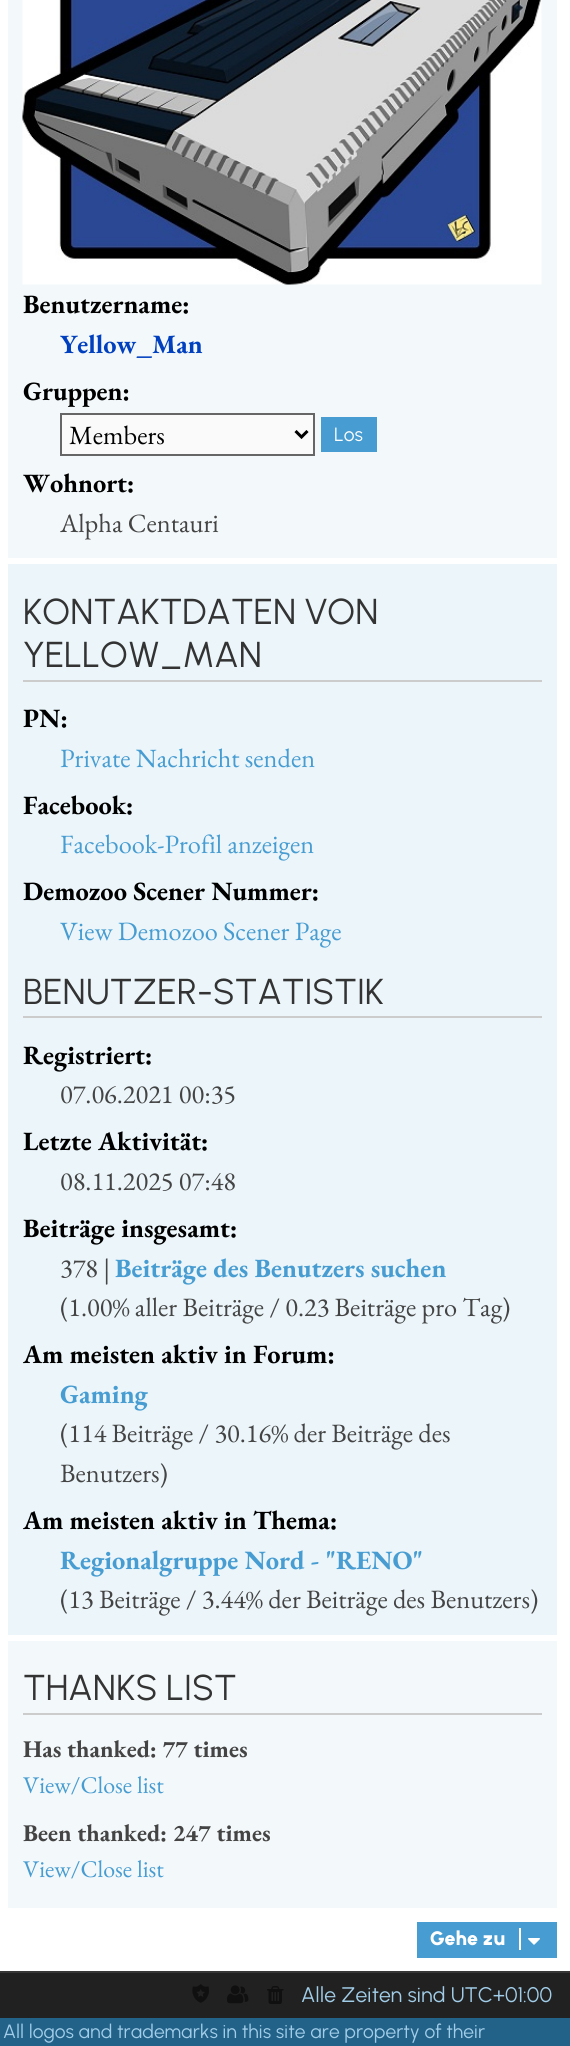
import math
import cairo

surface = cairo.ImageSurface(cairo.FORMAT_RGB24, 570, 2046)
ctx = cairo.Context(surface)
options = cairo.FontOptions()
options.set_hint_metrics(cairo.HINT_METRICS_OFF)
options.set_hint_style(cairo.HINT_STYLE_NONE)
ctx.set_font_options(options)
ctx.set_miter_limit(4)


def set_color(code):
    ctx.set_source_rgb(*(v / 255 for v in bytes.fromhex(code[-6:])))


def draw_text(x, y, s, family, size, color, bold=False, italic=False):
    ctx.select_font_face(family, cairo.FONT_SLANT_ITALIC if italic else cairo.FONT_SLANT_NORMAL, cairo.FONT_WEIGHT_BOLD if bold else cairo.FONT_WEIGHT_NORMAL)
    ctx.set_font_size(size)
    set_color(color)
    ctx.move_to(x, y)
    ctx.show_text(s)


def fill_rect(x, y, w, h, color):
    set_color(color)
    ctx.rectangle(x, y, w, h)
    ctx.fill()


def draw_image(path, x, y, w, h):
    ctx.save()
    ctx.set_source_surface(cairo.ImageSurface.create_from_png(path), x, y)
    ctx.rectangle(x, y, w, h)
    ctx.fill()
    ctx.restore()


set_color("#ffffff")
ctx.paint()
fill_rect(8, 0, 549, 558, "#f3f8fa")
draw_image("assets/img1.png", 22, 0, 520, 285)
draw_text(23, 313, "Benutzername:", "EB Garamond", 26.4, "#000000", bold=True)
draw_text(60, 353, "Yellow_Man", "EB Garamond", 26.4, "#0040bf", bold=True)
draw_text(23, 400, "Gruppen:", "EB Garamond", 26.4, "#000000", bold=True)
set_color("#fafafa")
ctx.rectangle(61, 414, 253, 41)
ctx.fill_preserve()
set_color("#666666")
ctx.stroke()
ctx.new_path()
ctx.move_to(295.5, 431)
ctx.line_to(301.5, 437)
ctx.line_to(307.5, 431)
set_color("#000000")
ctx.set_line_width(3)
ctx.stroke()
draw_text(69, 444, "Members", "EB Garamond", 26.4, "#000000")
fill_rect(321, 417, 56, 35, "#479cd1")
draw_text(334, 441, "Los", "Urbanist", 19.2, "#ffffff")
draw_text(23, 492, "Wohnort:", "EB Garamond", 26.4, "#000000", bold=True)
draw_text(60, 532, "Alpha Centauri", "EB Garamond", 26.4, "#444444")
fill_rect(8, 564, 549, 1071, "#ebf5fa")
fill_rect(23, 680, 519, 2, "#cccccc")
draw_text(23, 624, "KONTAKTDATEN VON", "Urbanist", 36, "#333333")
draw_text(23, 667, "YELLOW_MAN", "Urbanist", 36, "#333333")
draw_text(23, 727, "PN:", "EB Garamond", 26.4, "#000000", bold=True)
draw_text(60, 767, "Private Nachricht senden", "EB Garamond", 26.4, "#479cd1")
draw_text(23, 814, "Facebook:", "EB Garamond", 26.4, "#000000", bold=True)
draw_text(60, 853, "Facebook-Profil anzeigen", "EB Garamond", 26.4, "#479cd1")
draw_text(23, 900, "Demozoo Scener Nummer:", "EB Garamond", 26.4, "#000000", bold=True)
draw_text(60, 940, "View Demozoo Scener Page", "EB Garamond", 26.4, "#479cd1")
fill_rect(23, 1016, 519, 2, "#cccccc")
draw_text(23, 1004, "BENUTZER-STATISTIK", "Urbanist", 36, "#333333")
draw_text(23, 1064, "Registriert:", "EB Garamond", 26.4, "#000000", bold=True)
draw_text(60, 1103, "07.06.2021 00:35", "EB Garamond", 26.4, "#444444")
draw_text(23, 1150, "Letzte Aktivität:", "EB Garamond", 26.4, "#000000", bold=True)
draw_text(60, 1190, "08.11.2025 07:48", "EB Garamond", 26.4, "#444444")
draw_text(23, 1237, "Beiträge insgesamt:", "EB Garamond", 26.4, "#000000", bold=True)
draw_text(60, 1277, "378 |", "EB Garamond", 26.4, "#444444")
draw_text(115, 1277, "Beiträge des Benutzers suchen", "EB Garamond", 26.4, "#479cd1", bold=True)
draw_text(60, 1316, "(1.00% aller Beiträge / 0.23 Beiträge pro Tag)", "EB Garamond", 26.4, "#444444")
draw_text(23, 1363, "Am meisten aktiv in Forum:", "EB Garamond", 26.4, "#000000", bold=True)
draw_text(60, 1403, "Gaming", "EB Garamond", 26.4, "#479cd1", bold=True)
draw_text(60, 1442, "(114 Beiträge / 30.16% der Beiträge des", "EB Garamond", 26.4, "#444444")
draw_text(60, 1482, "Benutzers)", "EB Garamond", 26.4, "#444444")
draw_text(23, 1529, "Am meisten aktiv in Thema:", "EB Garamond", 26.4, "#000000", bold=True)
draw_text(60, 1569, "Regionalgruppe Nord - \"RENO\"", "EB Garamond", 26.4, "#479cd1", bold=True)
draw_text(60, 1608, "(13 Beiträge / 3.44% der Beiträge des Benutzers)", "EB Garamond", 26.4, "#444444")
fill_rect(8, 1641, 549, 267, "#f3f8fa")
fill_rect(23, 1713, 519, 2, "#cccccc")
draw_text(23, 1700, "THANKS LIST", "Urbanist", 36, "#333333")
draw_text(23, 1757, "Has thanked: 77 times", "EB Garamond", 24, "#444444", bold=True)
draw_text(23, 1793, "View/Close list", "EB Garamond", 24, "#479cd1")
draw_text(23, 1841, "Been thanked: 247 times", "EB Garamond", 24, "#444444", bold=True)
draw_text(23, 1877, "View/Close list", "EB Garamond", 24, "#479cd1")
fill_rect(417, 1922, 140, 36, "#479cd1")
draw_text(430, 1945, "Gehe zu", "Urbanist Black", 19.5, "#ffffff")
fill_rect(519, 1928, 2, 22, "#ffffff")
draw_image("assets/img2.png", 528, 1938, 12, 7)
fill_rect(0, 1973, 570, 45, "#212121")
fill_rect(0, 1971, 570, 2, "#373737")
draw_image("assets/img3.png", 192, 1984, 17, 19)
draw_image("assets/img4.png", 227, 1985, 22, 19)
draw_image("assets/img5.png", 267, 1986, 17, 18)
draw_text(301, 2002, "Alle Zeiten sind UTC+01:00", "Urbanist", 21.1, "#a1cde8")
fill_rect(0, 2018, 570, 28, "#226188")
draw_text(3, 2038, "All logos and trademarks in this site are property of their", "Urbanist", 19.2, "#a1cde8")
surface.write_to_png("output.png")
